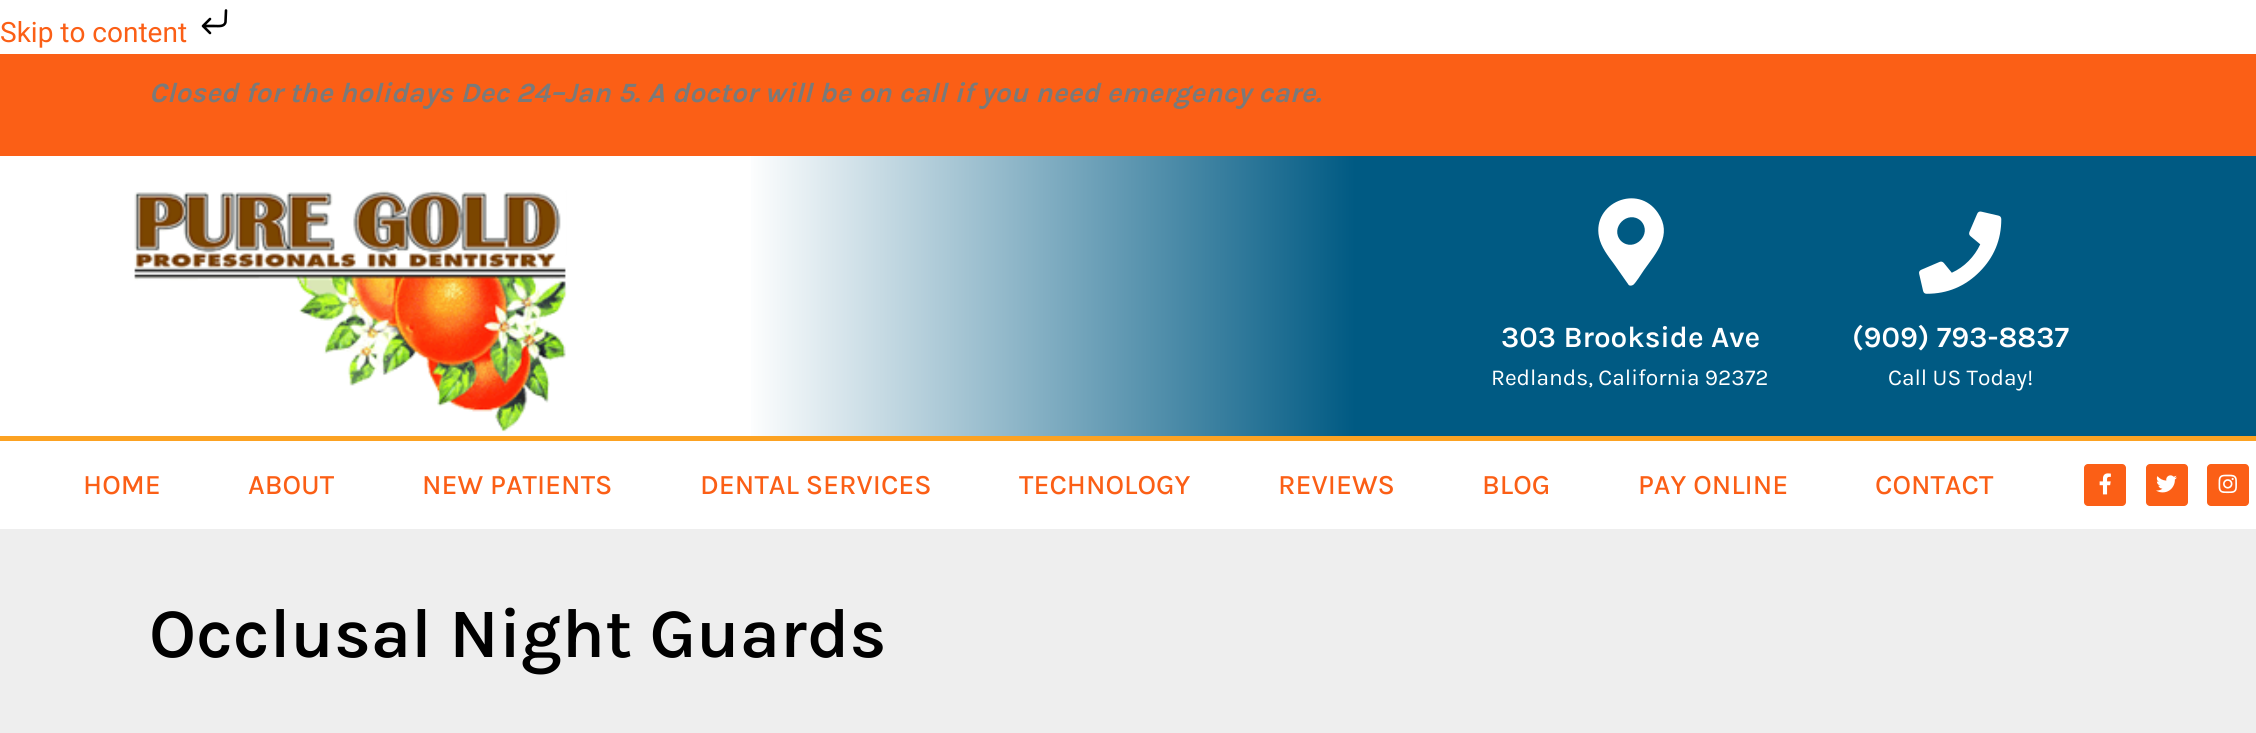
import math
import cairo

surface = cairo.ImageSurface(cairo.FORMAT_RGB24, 2256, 733)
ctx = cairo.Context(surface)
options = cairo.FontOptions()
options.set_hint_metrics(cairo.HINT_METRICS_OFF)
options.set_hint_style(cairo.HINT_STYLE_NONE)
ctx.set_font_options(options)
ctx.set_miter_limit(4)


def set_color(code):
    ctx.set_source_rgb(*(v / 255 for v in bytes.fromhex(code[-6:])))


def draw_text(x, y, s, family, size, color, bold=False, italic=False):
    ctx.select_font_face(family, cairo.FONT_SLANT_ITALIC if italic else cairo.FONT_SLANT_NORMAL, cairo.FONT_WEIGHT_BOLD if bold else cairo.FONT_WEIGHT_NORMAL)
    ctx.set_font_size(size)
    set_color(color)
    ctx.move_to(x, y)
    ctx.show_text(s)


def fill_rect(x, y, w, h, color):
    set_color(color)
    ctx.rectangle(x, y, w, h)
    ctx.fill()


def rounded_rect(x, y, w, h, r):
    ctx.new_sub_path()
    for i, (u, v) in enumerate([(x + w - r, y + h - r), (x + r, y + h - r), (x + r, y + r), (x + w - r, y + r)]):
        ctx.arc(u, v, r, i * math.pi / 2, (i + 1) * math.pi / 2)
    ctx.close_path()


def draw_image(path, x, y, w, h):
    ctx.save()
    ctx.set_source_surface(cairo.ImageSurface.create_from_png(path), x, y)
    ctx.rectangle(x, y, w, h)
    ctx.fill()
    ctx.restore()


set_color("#ffffff")
ctx.paint()
draw_text(0, 42, "Skip to content", "Roboto", 28, "#fb5f16")
ctx.new_path()
ctx.move_to(226, 10.5)
ctx.line_to(225.5, 22)
ctx.curve_to(224.5, 27, 218.5, 26, 214.5, 26)
ctx.line_to(203, 26)
ctx.move_to(203, 26)
ctx.line_to(210, 19)
ctx.move_to(203, 26)
ctx.line_to(210, 33)
set_color("#000000")
ctx.set_line_width(2.6)
ctx.set_line_cap(cairo.LINE_CAP_ROUND)
ctx.set_line_join(cairo.LINE_JOIN_ROUND)
ctx.stroke()
fill_rect(0, 54, 2256, 102, "#fb5f16")
draw_text(149, 102, "Closed for the holidays Dec 24–Jan 5. A doctor will be on call if you need emergency care.", "Karla", 28, "#7a7a7a", bold=True, italic=True)
gradient = cairo.LinearGradient(0, 296, 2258, 296)
gradient.add_color_stop_rgba(0.33, 1, 1, 1, 1)
gradient.add_color_stop_rgba(0.6, 0, 0.353, 0.514, 1)
ctx.set_source(gradient)
ctx.rectangle(751, 156, 1505, 280)
ctx.fill()
draw_image("assets/img1.png", 134, 190, 433, 242)
set_color("#ffffff")
ctx.new_path()
ctx.move_to(1628, 284)
ctx.line_to(1614, 264)
ctx.curve_to(1608, 256, 1601, 247, 1599, 237)
ctx.curve_to(1592, 203, 1638, 183, 1658, 213)
ctx.curve_to(1673, 235, 1656, 253, 1644, 270)
ctx.curve_to(1642, 273, 1635, 284, 1633, 285)
ctx.curve_to(1631, 286, 1629, 286, 1628, 284)
ctx.close_path()
ctx.move_to(1621, 241)
ctx.curve_to(1634, 253, 1653, 234, 1641, 221)
ctx.curve_to(1628, 209, 1609, 228, 1621, 241)
ctx.close_path()
ctx.fill()
draw_text(1501, 347, "303 Brookside Ave", "Karla SemiBold", 29.75, "#ffffff")
draw_text(1491, 385, "Redlands, California 92372", "Karla", 22.75, "#ffffff")
draw_image("assets/img2.png", 1919, 211, 83, 83)
draw_text(1852, 347, "(909) 793-8837", "Karla SemiBold", 29.75, "#ffffff")
draw_text(1888, 385, "Call US Today!", "Karla", 22.75, "#ffffff")
fill_rect(0, 436, 2256, 5, "#fca222")
draw_text(83, 494, "HOME", "Karla Medium", 28, "#fb5f16")
draw_text(248, 494, "ABOUT", "Karla Medium", 28, "#fb5f16")
draw_text(422, 494, "NEW PATIENTS", "Karla Medium", 28, "#fb5f16")
draw_text(700, 494, "DENTAL SERVICES", "Karla Medium", 28, "#fb5f16")
draw_text(1019, 494, "TECHNOLOGY", "Karla Medium", 28, "#fb5f16")
draw_text(1278, 494, "REVIEWS", "Karla Medium", 28, "#fb5f16")
draw_text(1482, 494, "BLOG", "Karla Medium", 28, "#fb5f16")
draw_text(1638, 494, "PAY ONLINE", "Karla Medium", 28, "#fb5f16")
draw_text(1875, 494, "CONTACT", "Karla Medium", 28, "#fb5f16")
rounded_rect(2084, 464, 42, 42, 4)
ctx.fill()
draw_image("assets/img3.png", 2099, 473, 12, 22)
rounded_rect(2146, 464, 42, 42, 4)
ctx.fill()
draw_image("assets/img4.png", 2156, 475, 21, 18)
rounded_rect(2207, 464, 42, 42, 4)
ctx.fill()
draw_image("assets/img5.png", 2218, 474, 19, 20)
fill_rect(0, 529, 2256, 204, "#eeeeee")
draw_text(149, 657, "Occlusal Night Guards", "Karla SemiBold", 70, "#000000")
surface.write_to_png("output.png")
